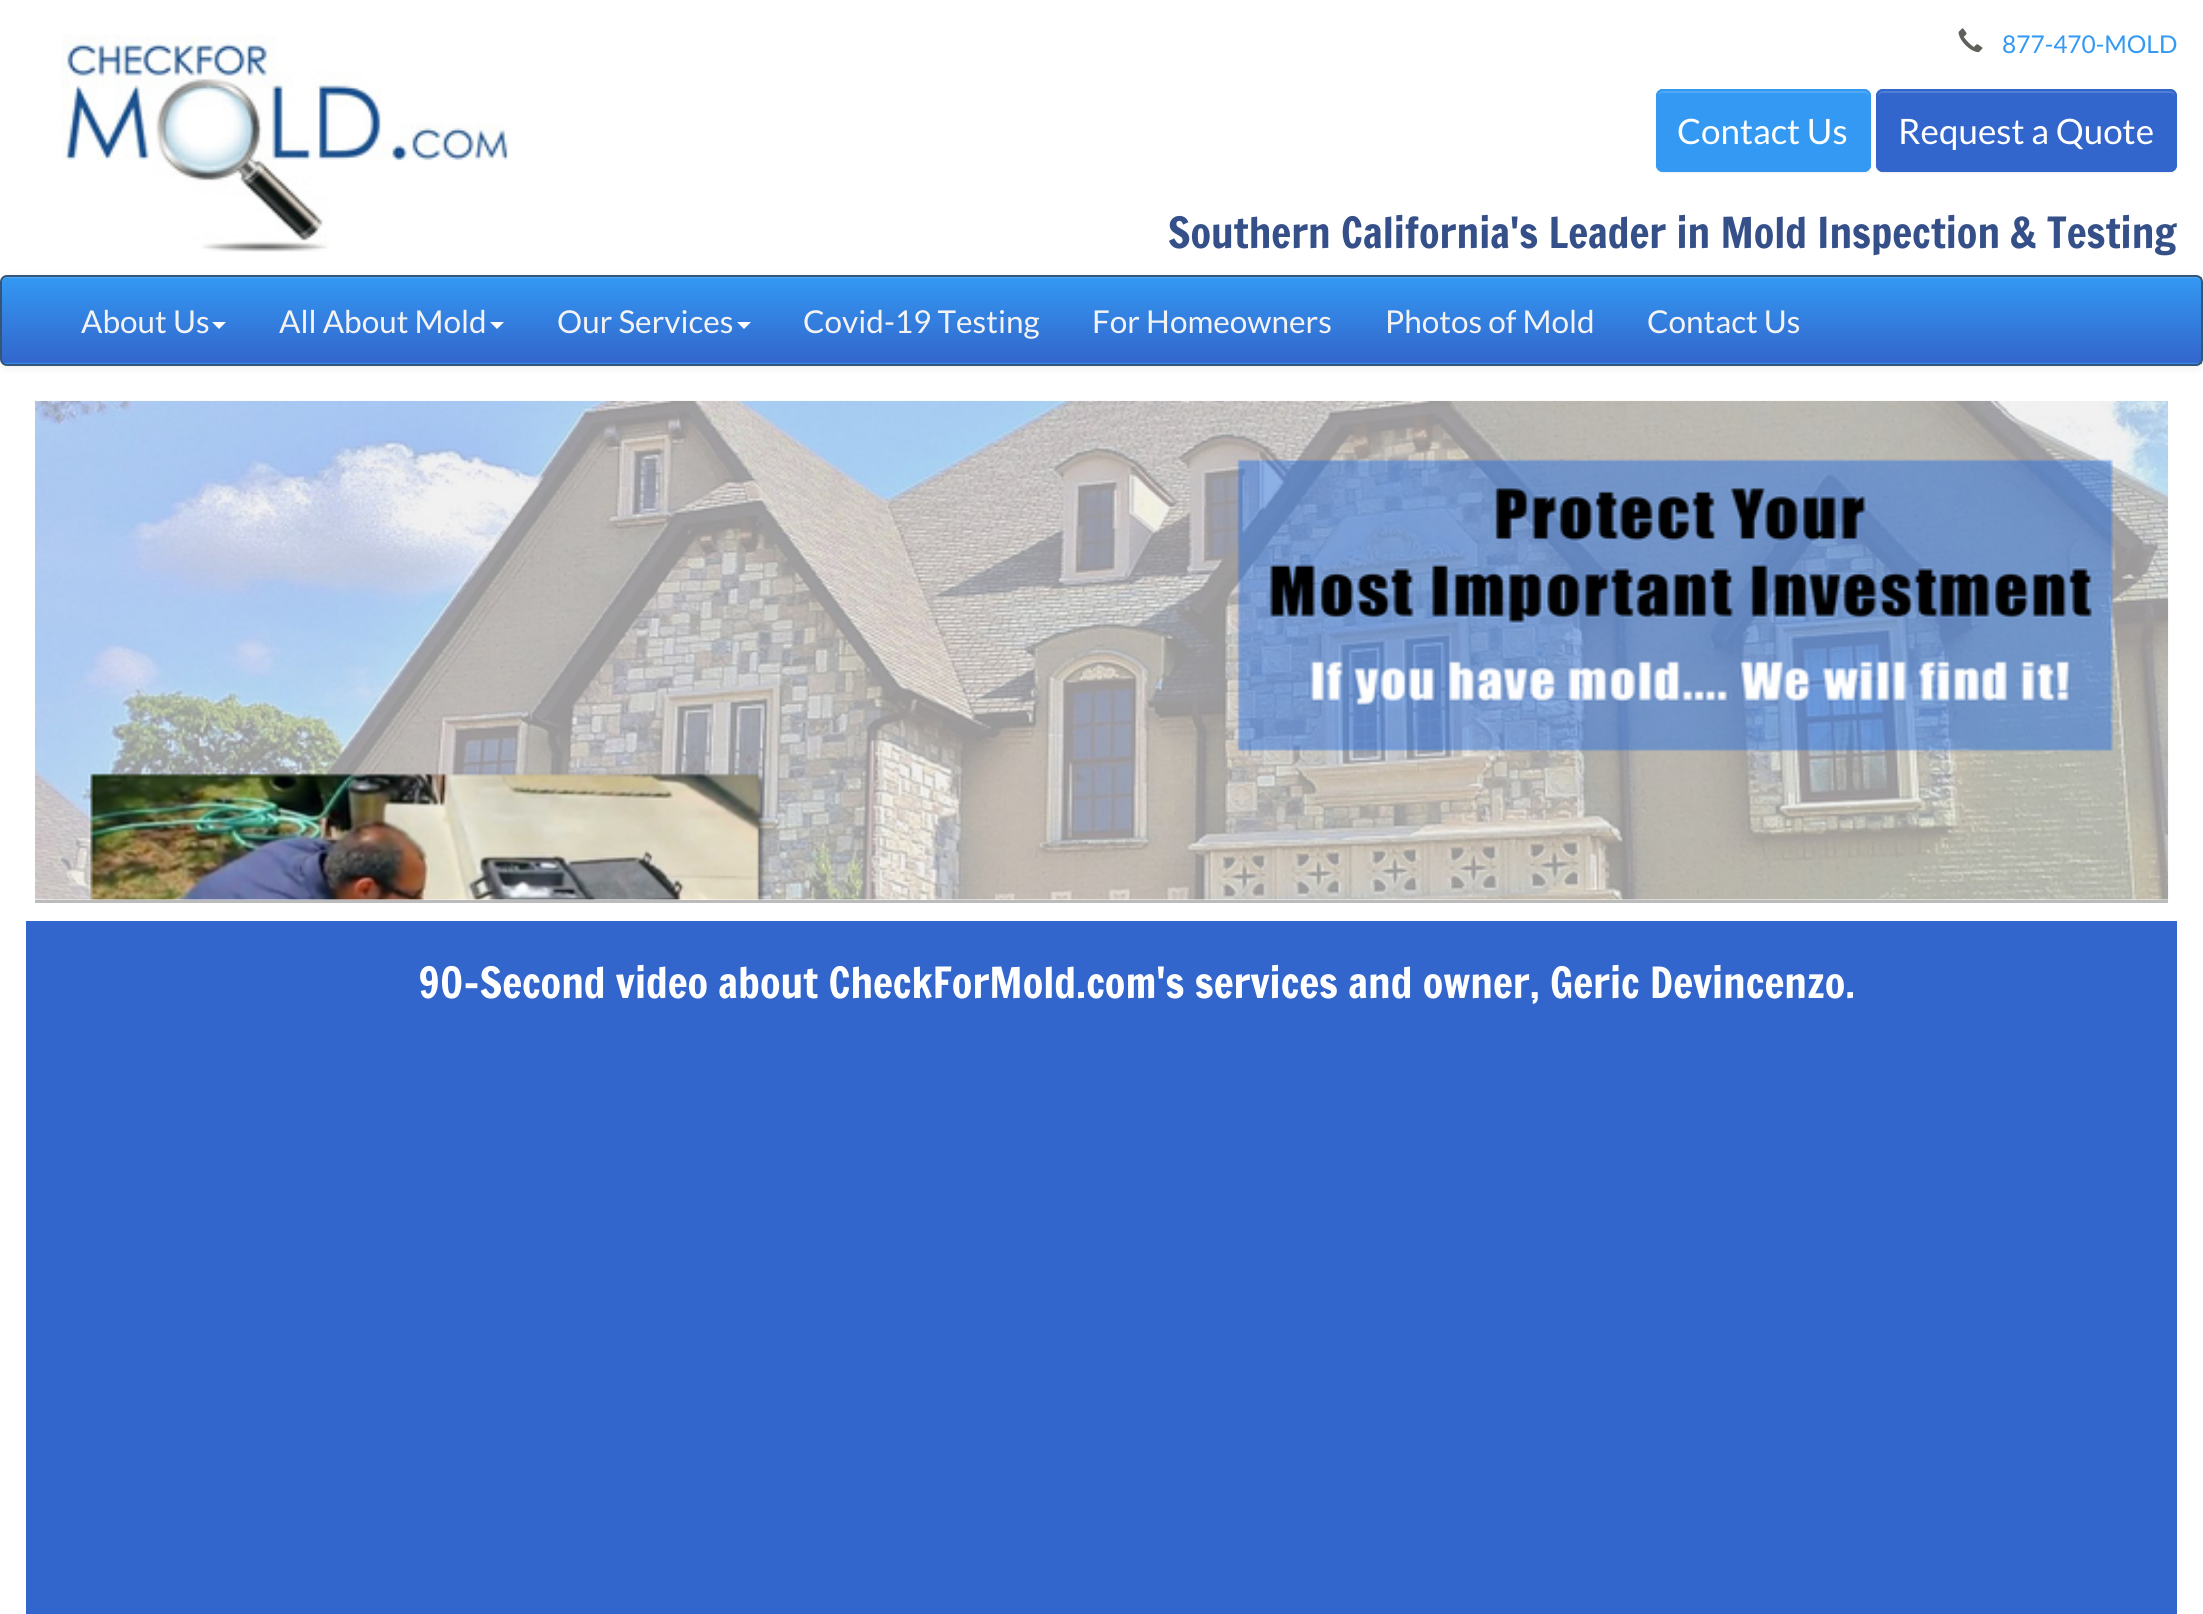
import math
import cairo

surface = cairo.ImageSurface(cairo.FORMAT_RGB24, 2203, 1614)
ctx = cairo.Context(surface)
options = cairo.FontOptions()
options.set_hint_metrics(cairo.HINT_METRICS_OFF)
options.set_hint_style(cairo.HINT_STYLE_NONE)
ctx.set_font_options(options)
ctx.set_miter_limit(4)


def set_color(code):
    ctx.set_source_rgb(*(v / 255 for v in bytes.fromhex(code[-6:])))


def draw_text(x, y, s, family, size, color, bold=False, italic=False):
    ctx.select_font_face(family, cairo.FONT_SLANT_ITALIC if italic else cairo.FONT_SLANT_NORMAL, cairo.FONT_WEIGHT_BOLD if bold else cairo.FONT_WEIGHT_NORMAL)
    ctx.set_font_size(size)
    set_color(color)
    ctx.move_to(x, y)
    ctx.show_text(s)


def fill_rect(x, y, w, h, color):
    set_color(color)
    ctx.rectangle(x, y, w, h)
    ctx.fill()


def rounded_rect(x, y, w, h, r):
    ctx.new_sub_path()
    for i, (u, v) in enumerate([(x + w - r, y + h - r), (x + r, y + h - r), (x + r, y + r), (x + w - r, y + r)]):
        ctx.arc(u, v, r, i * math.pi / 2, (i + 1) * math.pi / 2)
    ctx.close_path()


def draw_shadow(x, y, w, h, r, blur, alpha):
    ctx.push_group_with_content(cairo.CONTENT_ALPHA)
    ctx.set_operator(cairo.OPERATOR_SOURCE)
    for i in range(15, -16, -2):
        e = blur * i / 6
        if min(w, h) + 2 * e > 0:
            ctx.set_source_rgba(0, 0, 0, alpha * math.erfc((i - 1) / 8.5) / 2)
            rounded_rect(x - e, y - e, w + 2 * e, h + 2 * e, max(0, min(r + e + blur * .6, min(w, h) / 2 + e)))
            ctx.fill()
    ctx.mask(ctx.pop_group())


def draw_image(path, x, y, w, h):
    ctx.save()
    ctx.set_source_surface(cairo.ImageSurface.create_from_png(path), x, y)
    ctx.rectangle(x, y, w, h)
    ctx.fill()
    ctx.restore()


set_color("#ffffff")
ctx.paint()
draw_image("assets/img1.png", 61, 35, 447, 217)
draw_image("assets/img2.png", 1958, 28, 25, 25)
draw_text(2002, 53, "877-470-MOLD", "Lato", 24.5, "#3399f3")
set_color("#000000")
draw_shadow(1656, 91, 215, 82, 7, 1, 0.07)
set_color("#3399f3")
rounded_rect(1656, 89, 215, 83, 7)
ctx.fill()
set_color("#52a8f5")
ctx.new_path()
ctx.move_to(1662, 93)
ctx.line_to(1864, 93)
ctx.curve_to(1867, 93, 1869, 95, 1869, 98)
ctx.line_to(1869, 96)
ctx.curve_to(1869, 93, 1867, 91, 1864, 91)
ctx.line_to(1662, 91)
ctx.curve_to(1659, 91, 1657, 93, 1657, 96)
ctx.line_to(1657, 98)
ctx.curve_to(1657, 95, 1660, 93, 1662, 93)
ctx.close_path()
ctx.fill()
rounded_rect(1657, 90, 213, 81, 6)
set_color("#3399f3")
ctx.stroke()
draw_text(1677, 144, "Contact Us", "Lato", 35, "#ffffff")
set_color("#000000")
draw_shadow(1876, 91, 301, 82, 7, 1, 0.07)
set_color("#3366cc")
rounded_rect(1876, 89, 301, 83, 7)
ctx.fill()
set_color("#527dd4")
ctx.new_path()
ctx.move_to(1883, 93)
ctx.line_to(2170, 93)
ctx.curve_to(2173, 93, 2175, 95, 2175, 98)
ctx.curve_to(2175, 95, 2174, 91, 2170, 91)
ctx.line_to(1883, 91)
ctx.curve_to(1879, 91, 1878, 95, 1878, 98)
ctx.curve_to(1878, 95, 1880, 93, 1883, 93)
ctx.close_path()
ctx.fill()
rounded_rect(1877, 90, 299, 81, 6)
set_color("#3366cc")
ctx.stroke()
draw_text(1898, 144, "Request a Quote", "Lato", 35, "#ffffff")
draw_text(1168, 248, "Southern California's Leader in Mold Inspection & Testing", "Francois One", 42, "#355088")
set_color("#000000")
draw_shadow(0, 277, 2203, 91, 7, 4.5, 0.07)
gradient = cairo.LinearGradient(1102, 276, 1102, 364)
gradient.add_color_stop_rgba(0, 0.2, 0.6, 0.953, 1)
gradient.add_color_stop_rgba(0.98, 0.2, 0.4, 0.8, 1)
gradient.add_color_stop_rgba(1, 0.2, 0.6, 0.953, 1)
ctx.set_source(gradient)
ctx.rectangle(2, 277, 2200, 87)
ctx.fill()
set_color("#52a7f4")
ctx.new_path()
ctx.move_to(7, 278)
ctx.line_to(2196, 278)
ctx.curve_to(2199, 278, 2202, 281, 2202, 284)
ctx.line_to(2202, 282)
ctx.curve_to(2202, 279, 2200, 277, 2197, 277)
ctx.line_to(7, 277)
ctx.curve_to(4, 277, 2, 279, 2, 282)
ctx.line_to(2, 284)
ctx.curve_to(2, 281, 4, 278, 7, 278)
ctx.close_path()
ctx.fill()
rounded_rect(1, 276, 2201, 89, 6)
set_color("#345578")
ctx.stroke()
draw_text(81, 333, "About Us", "Lato", 31.5, "#f3f3f3")
set_color("#ffffff")
ctx.new_path()
ctx.move_to(212, 322)
ctx.line_to(226, 322)
ctx.line_to(219, 329)
ctx.close_path()
ctx.fill()
draw_text(279, 333, "All About Mold", "Lato", 31.5, "#f3f3f3")
set_color("#ffffff")
ctx.new_path()
ctx.move_to(490, 322)
ctx.line_to(504, 322)
ctx.line_to(497, 329)
ctx.close_path()
ctx.fill()
draw_text(557, 333, "Our Services", "Lato", 31.5, "#f3f3f3")
set_color("#ffffff")
ctx.new_path()
ctx.move_to(737, 322)
ctx.line_to(751, 322)
ctx.line_to(744, 329)
ctx.close_path()
ctx.fill()
draw_text(803, 333, "Covid-19 Testing", "Lato", 31.5, "#f3f3f3")
draw_text(1092, 333, "For Homeowners", "Lato", 31.5, "#f3f3f3")
draw_text(1385, 333, "Photos of Mold", "Lato", 31.5, "#f3f3f3")
draw_text(1647, 333, "Contact Us", "Lato", 31.5, "#f3f3f3")
fill_rect(35, 900, 2133, 3, "#bbbbbb")
draw_image("assets/img3.png", 35, 400, 2134, 500)
fill_rect(26, 921, 2151, 693, "#3366cc")
draw_text(418, 998, "90-Second video about CheckForMold.com's services and owner, Geric Devincenzo.", "Francois One", 42, "#ffffff")
surface.write_to_png("output.png")
